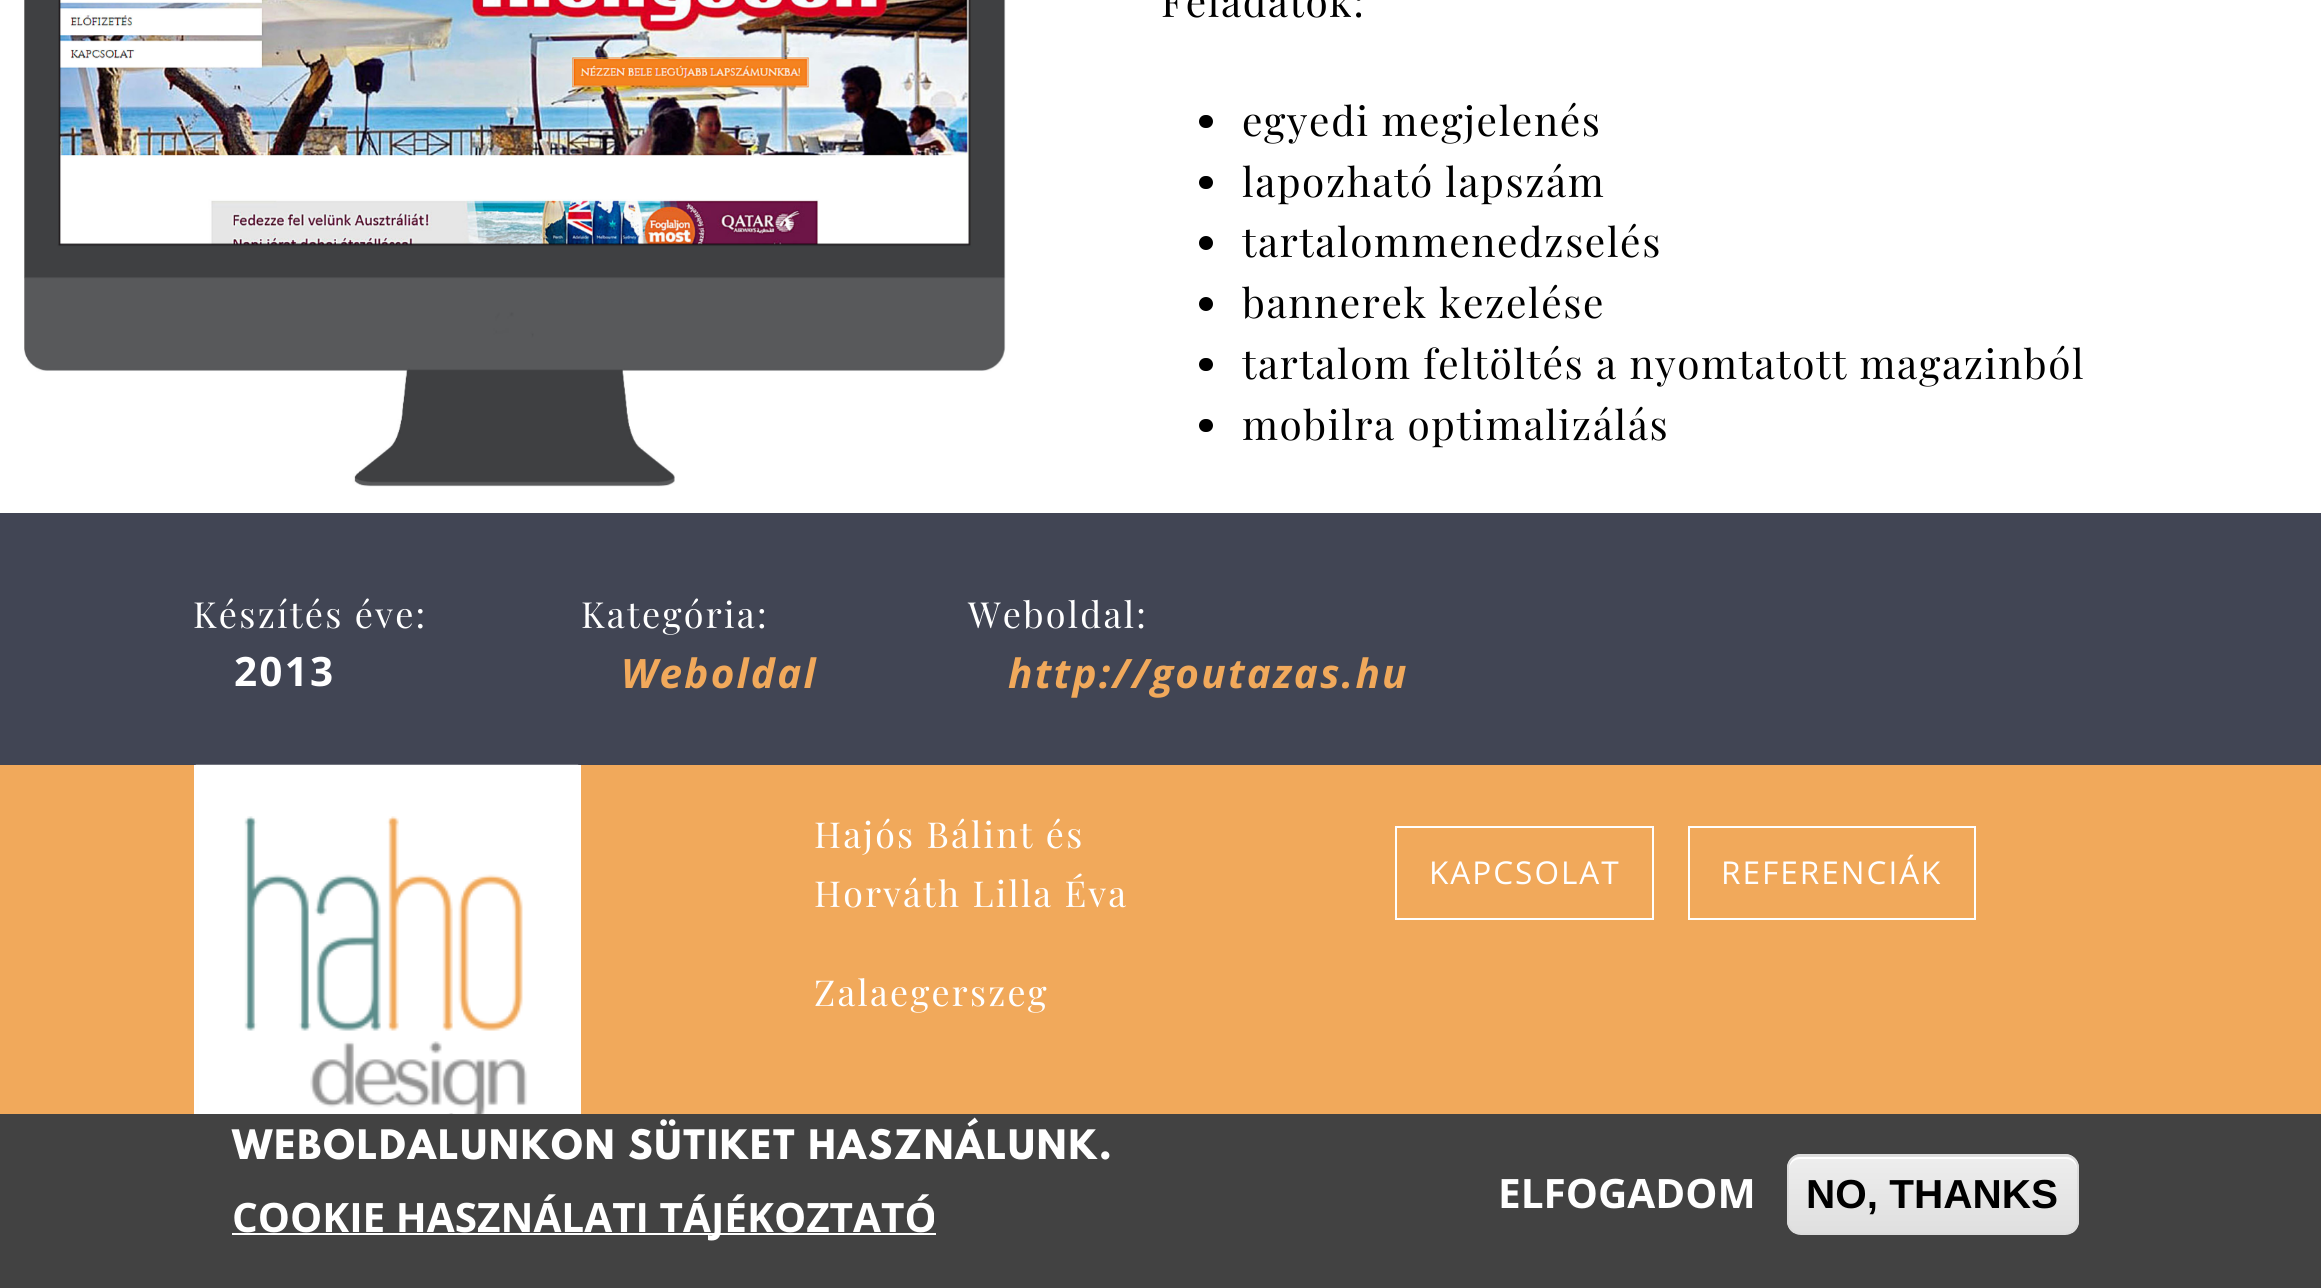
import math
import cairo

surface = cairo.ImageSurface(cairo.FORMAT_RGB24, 2321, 1288)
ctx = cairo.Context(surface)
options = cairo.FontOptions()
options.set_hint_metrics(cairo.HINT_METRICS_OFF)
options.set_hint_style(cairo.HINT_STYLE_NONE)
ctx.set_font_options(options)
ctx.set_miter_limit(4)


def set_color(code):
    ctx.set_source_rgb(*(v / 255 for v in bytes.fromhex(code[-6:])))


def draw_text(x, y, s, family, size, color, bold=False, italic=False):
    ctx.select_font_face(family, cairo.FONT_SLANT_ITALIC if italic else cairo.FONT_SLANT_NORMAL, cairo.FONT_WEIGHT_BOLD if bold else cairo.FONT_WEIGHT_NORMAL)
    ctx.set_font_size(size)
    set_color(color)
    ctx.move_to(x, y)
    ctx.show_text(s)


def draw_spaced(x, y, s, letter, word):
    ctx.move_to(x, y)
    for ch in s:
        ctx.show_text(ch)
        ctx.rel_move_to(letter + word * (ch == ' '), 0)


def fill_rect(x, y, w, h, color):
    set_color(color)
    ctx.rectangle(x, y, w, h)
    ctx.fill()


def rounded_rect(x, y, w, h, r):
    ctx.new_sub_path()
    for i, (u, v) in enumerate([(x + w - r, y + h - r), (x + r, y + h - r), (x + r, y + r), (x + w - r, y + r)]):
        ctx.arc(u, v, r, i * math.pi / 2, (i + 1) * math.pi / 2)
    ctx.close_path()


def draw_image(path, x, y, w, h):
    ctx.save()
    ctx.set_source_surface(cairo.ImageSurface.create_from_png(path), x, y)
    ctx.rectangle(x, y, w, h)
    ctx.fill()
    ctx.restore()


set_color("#ffffff")
ctx.paint()
draw_image("assets/img1.png", 24, 0, 982, 487)
ctx.select_font_face("Playfair Display")
ctx.set_font_size(40.5)
set_color("#000000")
draw_spaced(1161, 17, "Feladatok:", 1.6, 0)
rounded_rect(1199, 115, 14, 13, 6.5)
ctx.fill()
draw_spaced(1242, 136, "egyedi megjelenés", 1.6, 0)
rounded_rect(1199, 176, 14, 13, 6.5)
ctx.fill()
draw_spaced(1242, 197, "lapozható lapszám", 1.6, 0)
ctx.new_path()
ctx.arc(1206, 243, 7, 0, 2 * math.pi)
ctx.fill()
draw_spaced(1242, 257, "tartalommenedzselés", 1.6, 0)
ctx.new_path()
ctx.arc(1206, 304, 7, 0, 2 * math.pi)
ctx.fill()
draw_spaced(1242, 318, "bannerek kezelése", 1.6, 0)
rounded_rect(1199, 358, 14, 13, 6.5)
ctx.fill()
draw_spaced(1242, 379, "tartalom feltöltés a nyomtatott magazinból", 1.6, 0)
rounded_rect(1199, 419, 14, 13, 6.5)
ctx.fill()
draw_spaced(1242, 440, "mobilra optimalizálás", 1.6, 0)
fill_rect(0, 513, 2321, 252, "#414554")
ctx.set_font_size(36)
set_color("#ffffff")
draw_spaced(193, 628, "Készítés éve:", 2.25, 0)
ctx.select_font_face("Open Sans", cairo.FONT_SLANT_NORMAL, cairo.FONT_WEIGHT_BOLD)
ctx.set_font_size(40.5)
draw_spaced(234, 686, "2013", 2.25, 0)
ctx.select_font_face("Playfair Display")
ctx.set_font_size(36)
draw_spaced(581, 628, "Kategória:", 2.25, 0)
ctx.select_font_face("Open Sans", cairo.FONT_SLANT_ITALIC, cairo.FONT_WEIGHT_BOLD)
ctx.set_font_size(40.5)
set_color("#f1a95b")
draw_spaced(621, 688, "Weboldal", 2.25, 0)
ctx.select_font_face("Playfair Display")
ctx.set_font_size(36)
set_color("#ffffff")
draw_spaced(968, 628, "Weboldal:", 2.25, 0)
ctx.select_font_face("Open Sans", cairo.FONT_SLANT_ITALIC, cairo.FONT_WEIGHT_BOLD)
ctx.set_font_size(40.5)
set_color("#f1a95b")
draw_spaced(1008, 688, "http://goutazas.hu", 2.25, 0)
fill_rect(0, 765, 2321, 349, "#f1a95b")
fill_rect(194, 765, 387, 349, "#ffffff")
draw_image("assets/img2.png", 195, 764, 384, 350)
ctx.select_font_face("Playfair Display")
ctx.set_font_size(35.75)
draw_spaced(814, 848, "Hajós Bálint és", 2.25, 0)
draw_spaced(814, 907, "Horváth Lilla Éva", 2.25, 0)
draw_spaced(814, 1006, "Zalaegerszeg", 2.25, 0)
ctx.rectangle(1396, 827, 257, 92)
ctx.stroke()
ctx.select_font_face("Open Sans")
ctx.set_font_size(31.5)
draw_spaced(1429, 884, "KAPCSOLAT", 2, 0)
ctx.rectangle(1689, 827, 286, 92)
ctx.stroke()
draw_spaced(1721, 884, "REFERENCIÁK", 2, 0)
fill_rect(0, 1114, 2321, 174, "#424242")
ctx.select_font_face("League Spartan", cairo.FONT_SLANT_NORMAL, cairo.FONT_WEIGHT_BOLD)
ctx.set_font_size(36)
set_color("#ffffff")
draw_spaced(232, 1159, "WEBOLDALUNKON SÜTIKET HASZNÁLUNK.", 2, 0)
fill_rect(232, 1233, 704, 2, "#ffffff")
draw_text(232, 1232, "COOKIE HASZNÁLATI TÁJÉKOZTATÓ", "Open Sans", 40.5, "#ffffff", bold=True)
draw_text(1498, 1208, "ELFOGADOM", "Open Sans", 40.5, "#ffffff", bold=True)
ctx.save()
rounded_rect(1787, 1154, 292, 81, 14)
ctx.clip()
gradient = cairo.LinearGradient(1933, 1080, 1933, 1157)
gradient.add_color_stop_rgba(0.05, 0.929, 0.929, 0.929, 1)
gradient.add_color_stop_rgba(1, 0.875, 0.875, 0.875, 1)
ctx.set_source(gradient)
ctx.rectangle(1787, 1154, 292, 3)
ctx.fill()
gradient = cairo.LinearGradient(1933, 1157, 1933, 1233)
gradient.add_color_stop_rgba(0.05, 0.929, 0.929, 0.929, 1)
gradient.add_color_stop_rgba(1, 0.875, 0.875, 0.875, 1)
ctx.set_source(gradient)
ctx.rectangle(1787, 1157, 292, 76)
ctx.fill()
ctx.restore()
ctx.new_path()
ctx.move_to(1800, 1159)
ctx.line_to(2066, 1159)
ctx.curve_to(2072, 1159, 2077, 1164, 2077, 1170)
ctx.line_to(2077, 1168)
ctx.curve_to(2077, 1162, 2072, 1157, 2066, 1157)
ctx.line_to(1800, 1157)
ctx.curve_to(1794, 1157, 1789, 1162, 1789, 1168)
ctx.line_to(1789, 1170)
ctx.curve_to(1789, 1164, 1794, 1159, 1800, 1159)
ctx.close_path()
ctx.fill()
rounded_rect(1788, 1155, 290, 79, 13)
set_color("#dcdcdc")
ctx.stroke()
draw_text(1806, 1208, "NO, THANKS", "Liberation Sans", 40.5, "#000000", bold=True)
surface.write_to_png("output.png")
